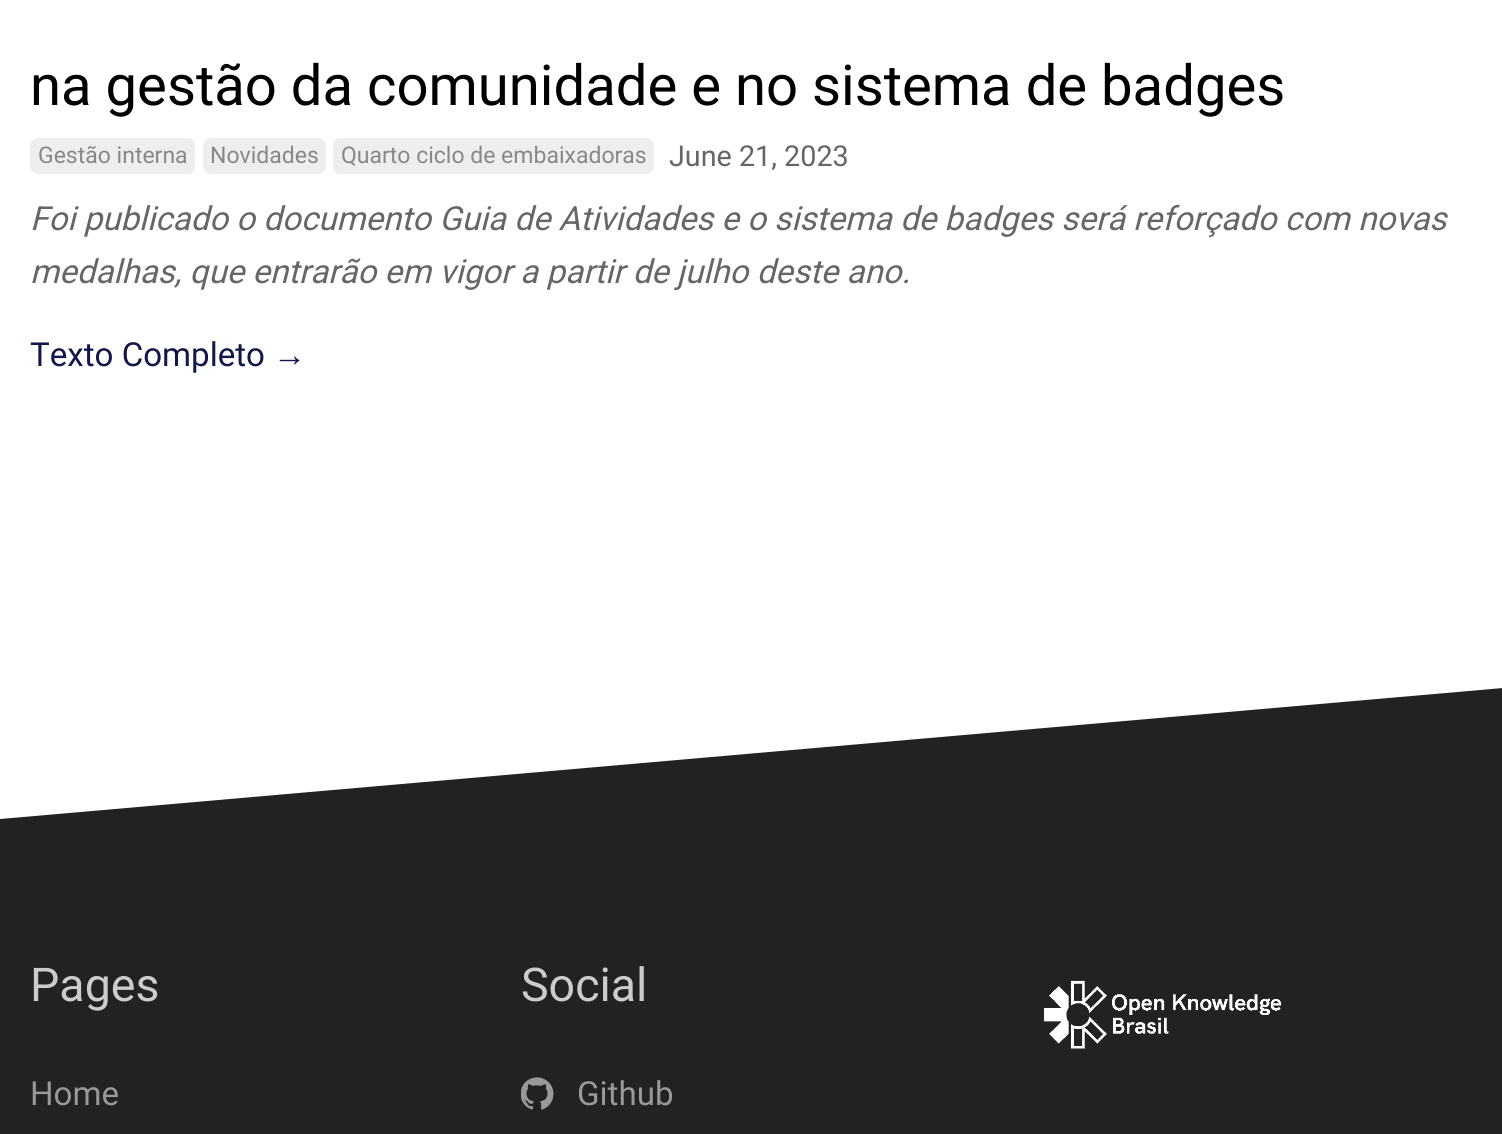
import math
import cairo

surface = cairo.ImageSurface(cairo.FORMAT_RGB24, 1502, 1134)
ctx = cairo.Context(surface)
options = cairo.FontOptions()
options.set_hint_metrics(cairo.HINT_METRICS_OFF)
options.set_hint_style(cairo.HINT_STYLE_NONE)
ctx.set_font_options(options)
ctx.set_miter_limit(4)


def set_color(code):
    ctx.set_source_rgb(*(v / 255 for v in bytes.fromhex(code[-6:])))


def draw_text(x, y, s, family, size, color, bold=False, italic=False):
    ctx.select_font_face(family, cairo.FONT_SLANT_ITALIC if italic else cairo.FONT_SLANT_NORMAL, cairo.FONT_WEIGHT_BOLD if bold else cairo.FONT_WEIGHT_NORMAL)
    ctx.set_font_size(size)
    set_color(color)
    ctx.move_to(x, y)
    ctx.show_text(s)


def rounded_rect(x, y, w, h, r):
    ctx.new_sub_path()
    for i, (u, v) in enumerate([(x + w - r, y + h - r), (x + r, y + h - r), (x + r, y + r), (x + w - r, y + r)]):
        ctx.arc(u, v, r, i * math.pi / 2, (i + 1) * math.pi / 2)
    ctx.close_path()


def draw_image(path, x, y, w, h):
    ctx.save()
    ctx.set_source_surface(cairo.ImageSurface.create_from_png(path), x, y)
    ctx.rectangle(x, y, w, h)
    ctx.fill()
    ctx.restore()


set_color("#ffffff")
ctx.paint()
draw_text(30, 105, "na gestão da comunidade e no sistema de badges", "Roboto", 56.2, "#000000")
set_color("#eeeeee")
rounded_rect(30, 138, 165, 36, 8)
ctx.fill()
draw_text(38, 163, "Gestão interna", "Roboto", 23, "#888888")
set_color("#eeeeee")
rounded_rect(203, 138, 123, 36, 8)
ctx.fill()
draw_text(210, 163, "Novidades", "Roboto", 23, "#888888")
set_color("#eeeeee")
rounded_rect(333, 138, 321, 36, 8)
ctx.fill()
draw_text(341, 163, "Quarto ciclo de embaixadoras", "Roboto", 23, "#888888")
draw_text(669, 166, "June 21, 2023", "Roboto", 28.75, "#666666")
draw_text(30, 230, "Foi publicado o documento Guia de Atividades e o sistema de badges será reforçado com novas", "Roboto", 33.1, "#666666", italic=True)
draw_text(30, 283, "medalhas, que entrarão em vigor a partir de julho deste ano.", "Roboto", 33.1, "#666666", italic=True)
draw_text(30, 366, "Texto Completo", "Roboto", 33.1, "#121648")
draw_text(273, 366, "→", "Liberation Sans", 33.1, "#121648")
set_color("#222222")
ctx.new_path()
ctx.move_to(0, 819)
ctx.line_to(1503, 688)
ctx.line_to(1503, 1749)
ctx.line_to(0, 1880)
ctx.close_path()
ctx.fill()
draw_text(30, 1001, "Pages", "Roboto", 46.5, "#cccccc")
draw_text(30, 1105, "Home", "Roboto", 33.1, "#999999")
draw_text(521, 1001, "Social", "Roboto", 46.5, "#cccccc")
draw_image("assets/img1.png", 521, 1077, 33, 33)
draw_text(577, 1105, "Github", "Roboto", 33.1, "#999999")
draw_image("assets/img2.png", 1043, 980, 239, 69)
surface.write_to_png("output.png")
